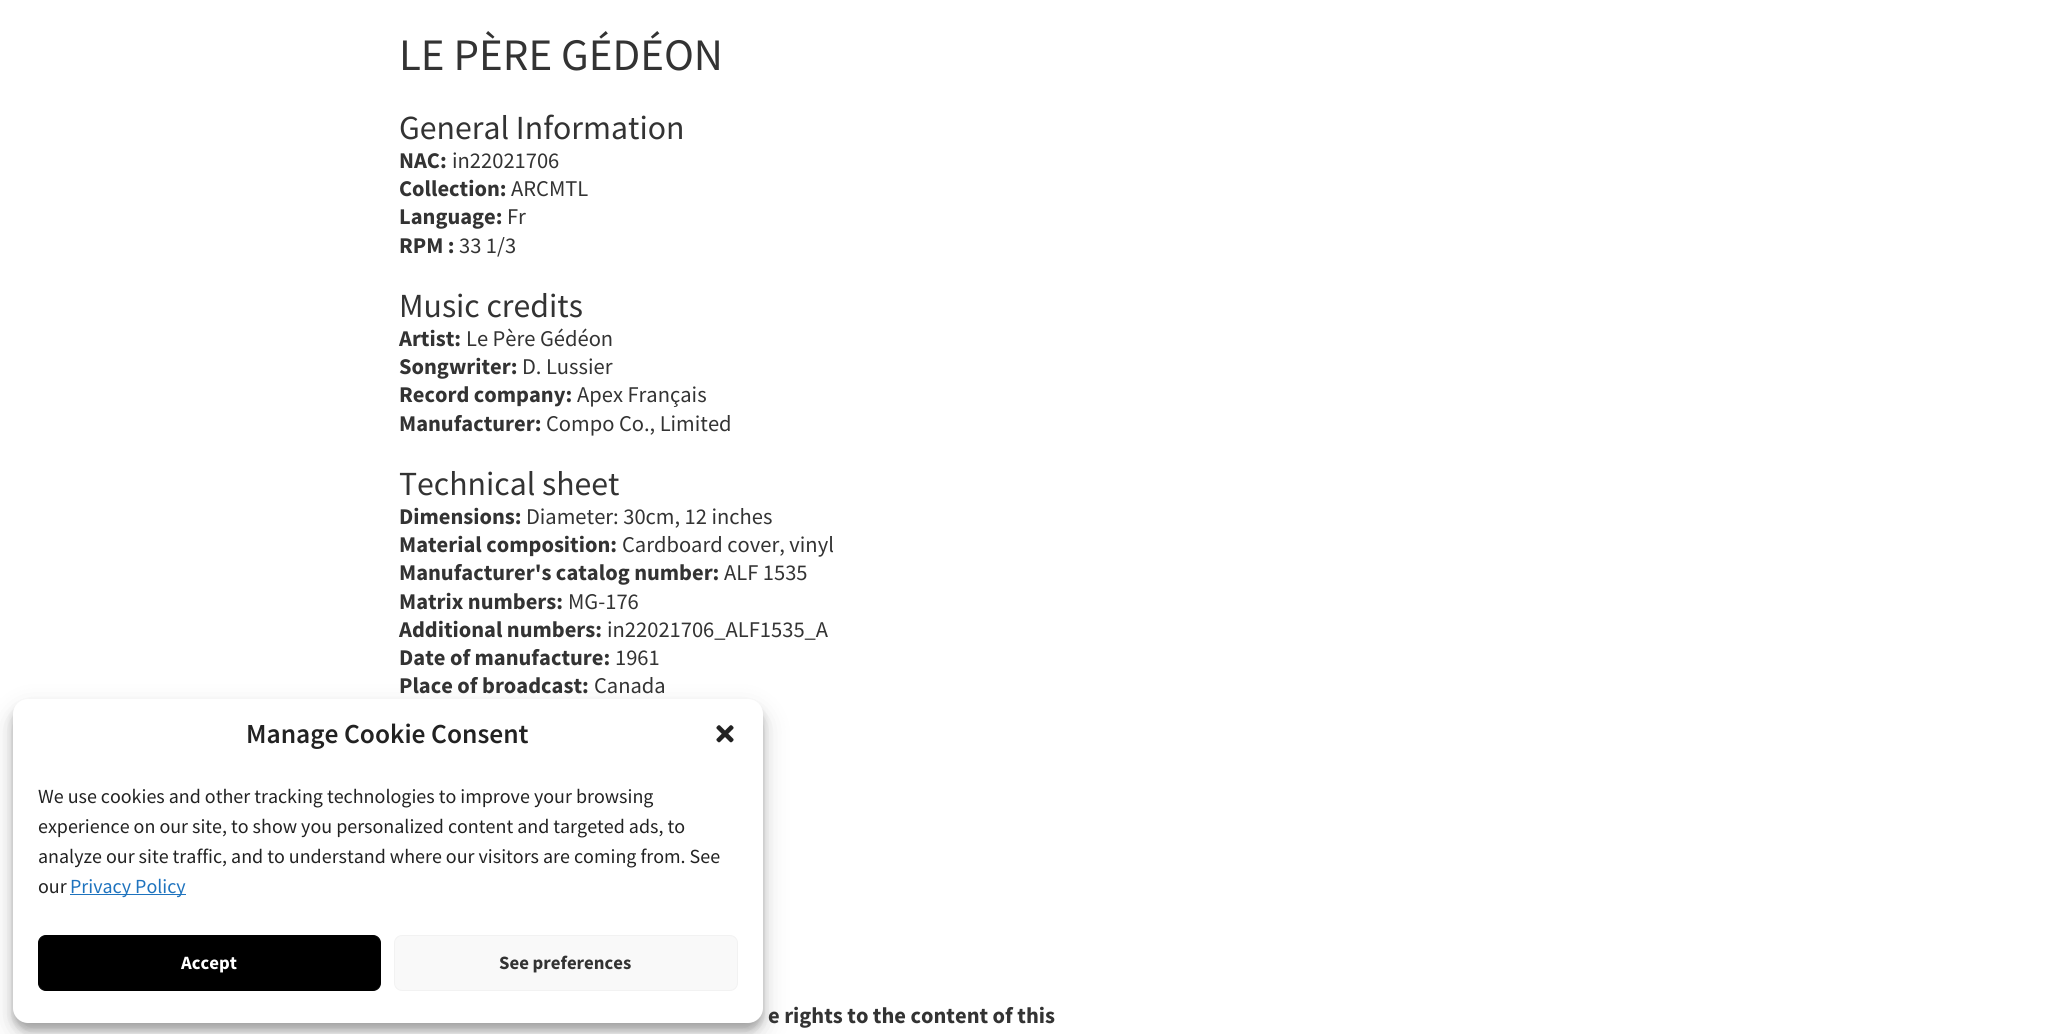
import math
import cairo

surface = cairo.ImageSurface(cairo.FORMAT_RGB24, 2048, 1034)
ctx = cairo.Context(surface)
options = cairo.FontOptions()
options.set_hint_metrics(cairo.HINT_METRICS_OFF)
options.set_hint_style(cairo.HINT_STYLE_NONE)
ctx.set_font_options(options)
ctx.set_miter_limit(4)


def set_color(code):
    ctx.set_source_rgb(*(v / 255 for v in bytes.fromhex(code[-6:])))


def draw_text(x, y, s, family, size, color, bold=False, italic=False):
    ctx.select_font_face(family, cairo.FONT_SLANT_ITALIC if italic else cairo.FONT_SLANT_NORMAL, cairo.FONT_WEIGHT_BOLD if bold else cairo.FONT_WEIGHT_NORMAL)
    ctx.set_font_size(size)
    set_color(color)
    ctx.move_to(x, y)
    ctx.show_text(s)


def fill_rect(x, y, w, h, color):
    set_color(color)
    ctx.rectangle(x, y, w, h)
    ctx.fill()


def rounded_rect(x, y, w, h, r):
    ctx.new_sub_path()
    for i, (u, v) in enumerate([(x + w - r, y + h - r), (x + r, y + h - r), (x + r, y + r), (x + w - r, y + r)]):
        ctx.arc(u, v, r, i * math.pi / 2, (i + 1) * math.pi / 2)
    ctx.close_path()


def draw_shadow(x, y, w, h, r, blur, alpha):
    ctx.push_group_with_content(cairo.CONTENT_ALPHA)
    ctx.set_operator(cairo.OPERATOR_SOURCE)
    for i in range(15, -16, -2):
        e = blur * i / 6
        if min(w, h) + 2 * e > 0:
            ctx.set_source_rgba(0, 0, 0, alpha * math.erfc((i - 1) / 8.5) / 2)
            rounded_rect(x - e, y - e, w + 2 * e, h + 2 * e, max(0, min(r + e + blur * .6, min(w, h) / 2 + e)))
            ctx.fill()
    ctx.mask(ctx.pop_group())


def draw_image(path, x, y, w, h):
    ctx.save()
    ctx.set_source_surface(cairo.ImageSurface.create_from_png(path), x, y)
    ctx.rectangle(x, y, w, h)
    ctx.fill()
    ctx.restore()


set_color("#ffffff")
ctx.paint()
set_color("#000000")
draw_shadow(13, 706, 750, 324, 15, 4, 0.23)
draw_shadow(13, 711, 750, 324, 15, 12.5, 0.19)
set_color("#ffffff")
rounded_rect(13, 699, 750, 324, 15)
ctx.fill()
draw_text(246, 743, "Manage Cookie Consent", "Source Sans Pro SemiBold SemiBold", 27.5, "#222222")
draw_image("assets/img1.png", 716, 725, 18, 18)
draw_text(38, 803, "We use cookies and other tracking technologies to improve your browsing", "Source Sans Pro", 20, "#222222")
draw_text(38, 833, "experience on our site, to show you personalized content and targeted ads, to", "Source Sans Pro", 20, "#222222")
draw_text(38, 863, "analyze our site traffic, and to understand where our visitors are coming from. See", "Source Sans Pro", 20, "#222222")
draw_text(38, 893, "our", "Source Sans Pro", 20, "#222222")
fill_rect(70, 894, 116, 1, "#1e73be")
draw_text(70, 893, "Privacy Policy", "Source Sans Pro", 20, "#1e73be")
set_color("#000000")
rounded_rect(38.5, 935.5, 342, 55, 7.5)
ctx.fill_preserve()
ctx.set_line_width(1)
ctx.stroke()
draw_text(181, 969, "Accept", "Source Sans Pro", 18.75, "#ffffff", bold=True)
set_color("#f9f9f9")
rounded_rect(394.5, 935.5, 343, 55, 7.5)
ctx.fill_preserve()
set_color("#f2f2f2")
ctx.stroke()
draw_text(499, 969, "See preferences", "Source Sans Pro", 18.75, "#333333", bold=True)
draw_text(399, 70, "LE PÈRE GÉDÉON", "Source Sans Pro", 45, "#333333")
draw_text(399, 139, "General Information", "Source Sans Pro", 33.75, "#333333")
draw_text(399, 168, "NAC:", "Source Sans Pro", 22.5, "#333333", bold=True)
draw_text(452, 168, "in22021706", "Source Sans Pro", 22.5, "#333333")
draw_text(399, 196, "Collection:", "Source Sans Pro", 22.5, "#333333", bold=True)
draw_text(511, 196, "ARCMTL", "Source Sans Pro", 22.5, "#333333")
draw_text(399, 224, "Language:", "Source Sans Pro", 22.5, "#333333", bold=True)
draw_text(507, 224, "Fr", "Source Sans Pro", 22.5, "#333333")
draw_text(399, 253, "RPM :", "Source Sans Pro", 22.5, "#333333", bold=True)
draw_text(459, 253, "33 1/3", "Source Sans Pro", 22.5, "#333333")
draw_text(399, 317, "Music credits", "Source Sans Pro", 33.75, "#333333")
draw_text(399, 346, "Artist:", "Source Sans Pro", 22.5, "#333333", bold=True)
draw_text(466, 346, "Le Père Gédéon", "Source Sans Pro", 22.5, "#333333")
draw_text(399, 374, "Songwriter:", "Source Sans Pro", 22.5, "#333333", bold=True)
draw_text(522, 374, "D. Lussier", "Source Sans Pro", 22.5, "#333333")
draw_text(399, 402, "Record company:", "Source Sans Pro", 22.5, "#333333", bold=True)
draw_text(577, 402, "Apex Français", "Source Sans Pro", 22.5, "#333333")
draw_text(399, 431, "Manufacturer:", "Source Sans Pro", 22.5, "#333333", bold=True)
draw_text(546, 431, "Compo Co., Limited", "Source Sans Pro", 22.5, "#333333")
draw_text(399, 495, "Technical sheet", "Source Sans Pro", 33.75, "#333333")
draw_text(399, 524, "Dimensions:", "Source Sans Pro", 22.5, "#333333", bold=True)
draw_text(526, 524, "Diameter: 30cm, 12 inches", "Source Sans Pro", 22.5, "#333333")
draw_text(399, 552, "Material composition:", "Source Sans Pro", 22.5, "#333333", bold=True)
draw_text(622, 552, "Cardboard cover, vinyl", "Source Sans Pro", 22.5, "#333333")
draw_text(399, 580, "Manufacturer's catalog number:", "Source Sans Pro", 22.5, "#333333", bold=True)
draw_text(724, 580, "ALF 1535", "Source Sans Pro", 22.5, "#333333")
draw_text(399, 609, "Matrix numbers:", "Source Sans Pro", 22.5, "#333333", bold=True)
draw_text(568, 609, "MG-176", "Source Sans Pro", 22.5, "#333333")
draw_text(399, 637, "Additional numbers:", "Source Sans Pro", 22.5, "#333333", bold=True)
draw_text(607, 637, "in22021706_ALF1535_A", "Source Sans Pro", 22.5, "#333333")
draw_text(399, 665, "Date of manufacture:", "Source Sans Pro", 22.5, "#333333", bold=True)
draw_text(615, 665, "1961", "Source Sans Pro", 22.5, "#333333")
draw_text(399, 693, "Place of broadcast:", "Source Sans Pro", 22.5, "#333333", bold=True)
draw_text(594, 693, "Canada", "Source Sans Pro", 22.5, "#333333")
draw_text(768, 1023, "e rights to the content of this", "Source Sans Pro", 22.5, "#333333", bold=True)
surface.write_to_png("output.png")
